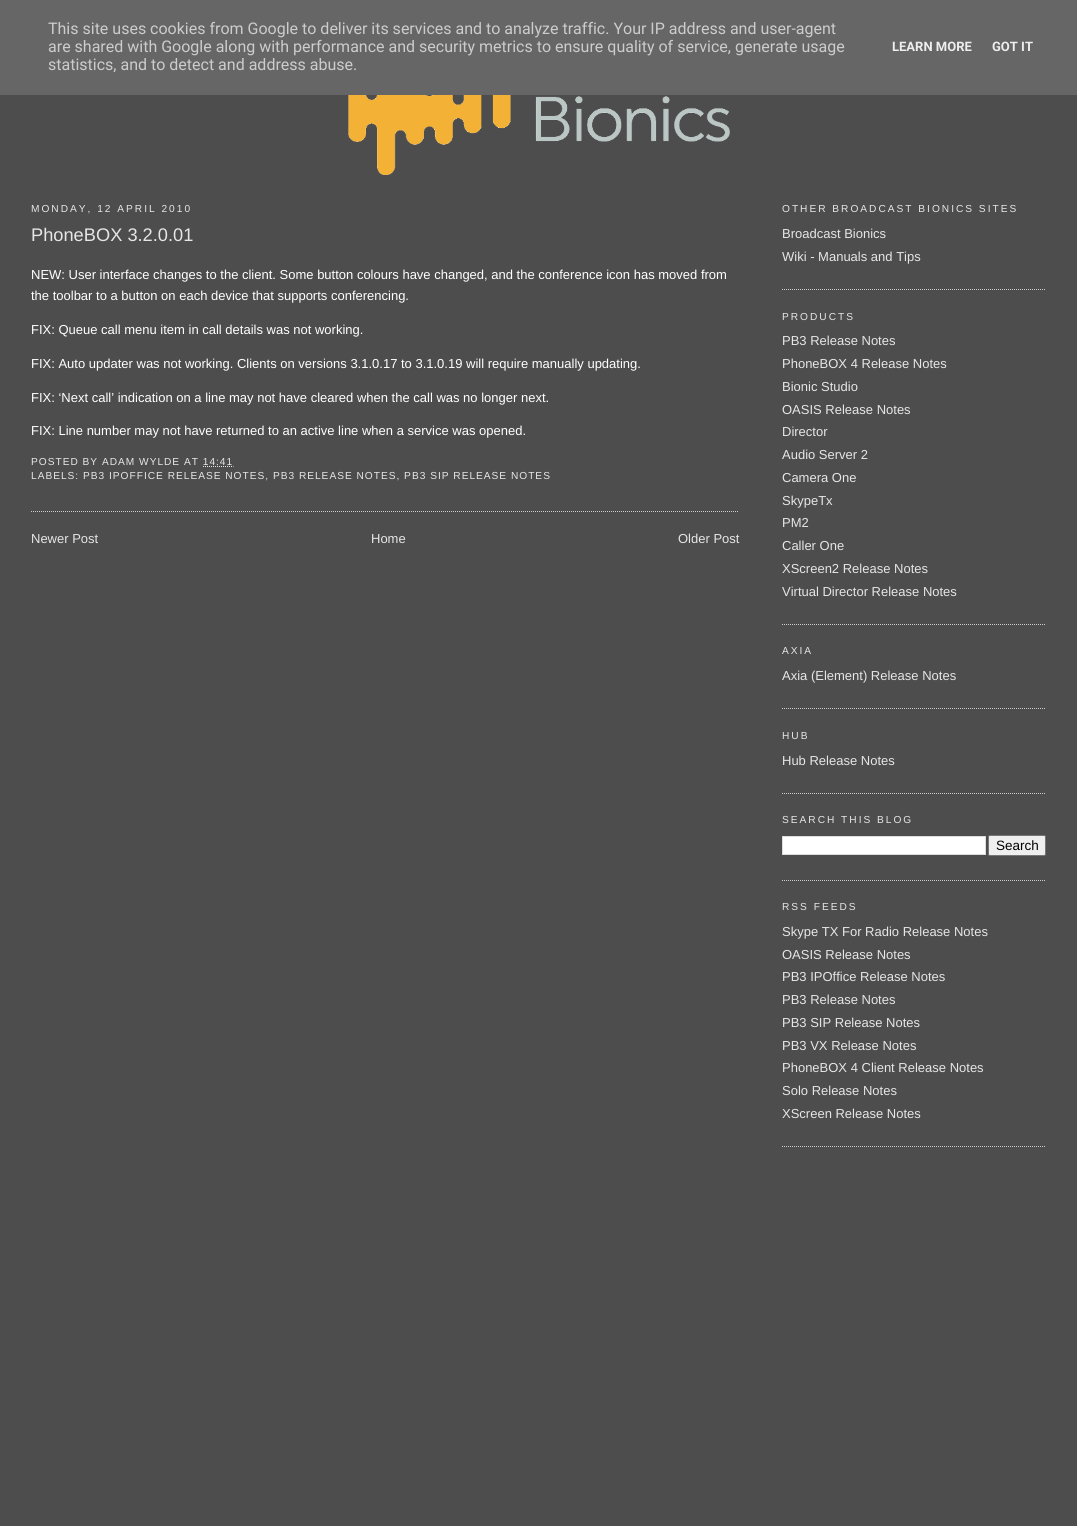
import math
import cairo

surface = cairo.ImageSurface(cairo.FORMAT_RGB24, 1077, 1526)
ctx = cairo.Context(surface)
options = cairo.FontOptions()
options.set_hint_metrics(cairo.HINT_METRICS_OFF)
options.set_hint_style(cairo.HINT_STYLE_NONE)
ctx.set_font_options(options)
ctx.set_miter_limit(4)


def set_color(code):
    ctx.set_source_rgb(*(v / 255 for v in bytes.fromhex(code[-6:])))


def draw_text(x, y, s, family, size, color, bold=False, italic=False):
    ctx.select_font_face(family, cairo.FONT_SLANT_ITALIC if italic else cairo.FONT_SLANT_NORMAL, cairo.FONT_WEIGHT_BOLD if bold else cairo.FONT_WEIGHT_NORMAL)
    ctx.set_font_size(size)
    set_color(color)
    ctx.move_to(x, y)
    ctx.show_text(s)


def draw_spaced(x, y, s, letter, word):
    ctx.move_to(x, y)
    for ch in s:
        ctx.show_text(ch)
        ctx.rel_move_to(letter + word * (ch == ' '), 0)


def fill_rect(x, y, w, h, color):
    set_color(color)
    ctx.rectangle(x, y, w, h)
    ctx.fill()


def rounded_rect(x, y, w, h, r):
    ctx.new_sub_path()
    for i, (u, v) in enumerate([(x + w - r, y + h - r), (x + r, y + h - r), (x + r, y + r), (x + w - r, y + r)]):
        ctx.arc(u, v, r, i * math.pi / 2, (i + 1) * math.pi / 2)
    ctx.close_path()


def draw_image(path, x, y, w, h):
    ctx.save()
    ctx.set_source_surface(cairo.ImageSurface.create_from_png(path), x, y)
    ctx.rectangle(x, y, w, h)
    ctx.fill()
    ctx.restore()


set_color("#4e4d4d")
ctx.paint()
fill_rect(0, 0, 1077, 95, "#666666")
draw_text(48, 34, "This site uses cookies from Google to deliver its services and to analyze traffic. Your IP address and user-agent", "Roboto", 16, "#cccccc")
draw_text(48, 52, "are shared with Google along with performance and security metrics to ensure quality of service, generate usage", "Roboto", 16, "#cccccc")
draw_text(48, 70, "statistics, and to detect and address abuse.", "Roboto", 16, "#cccccc")
draw_text(892, 51, "LEARN MORE", "Roboto", 13, "#eeeeee", bold=True)
draw_text(992, 51, "GOT IT", "Roboto", 13, "#eeeeee", bold=True)
draw_image("assets/img1.png", 348, 95, 382, 80)
ctx.select_font_face("Liberation Sans")
ctx.set_font_size(10.15)
set_color("#e6e6e6")
draw_spaced(31, 212, "MONDAY, 12 APRIL 2010", 2, 0)
ctx.new_path()
ctx.move_to(31, 511.5)
ctx.line_to(739, 511.5)
set_color("#cccccc")
ctx.set_line_width(1)
ctx.set_dash([1, 1])
ctx.stroke()
draw_text(31, 241, "PhoneBOX 3.2.0.01", "Liberation Sans", 18.25, "#e6e6e6")
draw_text(31, 279, "NEW: User interface changes to the client. Some button colours have changed, and the conference icon has moved from", "Liberation Sans", 13, "#ffffff")
draw_text(31, 300, "the toolbar to a button on each device that supports conferencing.", "Liberation Sans", 13, "#ffffff")
draw_text(31, 334, "FIX: Queue call menu item in call details was not working.", "Liberation Sans", 13, "#ffffff")
draw_text(31, 368, "FIX: Auto updater was not working. Clients on versions 3.1.0.17 to 3.1.0.19 will require manually updating.", "Liberation Sans", 13, "#ffffff")
draw_text(31, 402, "FIX: ‘Next call’ indication on a line may not have cleared when the call was no longer next.", "Liberation Sans", 13, "#ffffff")
draw_text(31, 435, "FIX: Line number may not have returned to an active line when a service was opened.", "Liberation Sans", 13, "#ffffff")
ctx.set_font_size(10.15)
set_color("#e6e6e6")
draw_spaced(31, 465, "POSTED BY ADAM WYLDE AT 14:41", 1, 0)
ctx.new_path()
ctx.move_to(203, 466.5)
ctx.line_to(233.5, 466.5)
ctx.stroke()
draw_spaced(31, 479, "LABELS: PB3 IPOFFICE RELEASE NOTES, PB3 RELEASE NOTES, PB3 SIP RELEASE NOTES", 1, 0)
draw_text(31, 543, "Newer Post", "Liberation Sans", 13, "#e6e6e6")
draw_text(371, 543, "Home", "Liberation Sans", 13, "#e6e6e6")
draw_text(678, 543, "Older Post", "Liberation Sans", 13, "#e6e6e6")
ctx.new_path()
ctx.move_to(782, 289.5)
ctx.line_to(1046, 289.5)
set_color("#cccccc")
ctx.stroke()
ctx.set_font_size(10.15)
set_color("#e6e6e6")
draw_spaced(782, 212, "OTHER BROADCAST BIONICS SITES", 2, 0)
draw_text(782, 238, "Broadcast Bionics", "Liberation Sans", 13, "#e6e6e6")
draw_text(782, 261, "Wiki - Manuals and Tips", "Liberation Sans", 13, "#e6e6e6")
ctx.new_path()
ctx.move_to(782, 624.5)
ctx.line_to(1046, 624.5)
set_color("#cccccc")
ctx.stroke()
ctx.set_font_size(10.15)
set_color("#e6e6e6")
draw_spaced(782, 320, "PRODUCTS", 2, 0)
draw_text(782, 345, "PB3 Release Notes", "Liberation Sans", 13, "#e6e6e6")
draw_text(782, 368, "PhoneBOX 4 Release Notes", "Liberation Sans", 13, "#e6e6e6")
draw_text(782, 391, "Bionic Studio", "Liberation Sans", 13, "#e6e6e6")
draw_text(782, 414, "OASIS Release Notes", "Liberation Sans", 13, "#e6e6e6")
draw_text(782, 436, "Director", "Liberation Sans", 13, "#e6e6e6")
draw_text(782, 459, "Audio Server 2", "Liberation Sans", 13, "#e6e6e6")
draw_text(782, 482, "Camera One", "Liberation Sans", 13, "#e6e6e6")
draw_text(782, 505, "SkypeTx", "Liberation Sans", 13, "#e6e6e6")
draw_text(782, 527, "PM2", "Liberation Sans", 13, "#e6e6e6")
draw_text(782, 550, "Caller One", "Liberation Sans", 13, "#e6e6e6")
draw_text(782, 573, "XScreen2 Release Notes", "Liberation Sans", 13, "#e6e6e6")
draw_text(782, 596, "Virtual Director Release Notes", "Liberation Sans", 13, "#e6e6e6")
ctx.new_path()
ctx.move_to(782, 708.5)
ctx.line_to(1046, 708.5)
set_color("#cccccc")
ctx.stroke()
ctx.set_font_size(10.15)
set_color("#e6e6e6")
draw_spaced(782, 654, "AXIA", 2, 0)
draw_text(782, 680, "Axia (Element) Release Notes", "Liberation Sans", 13, "#e6e6e6")
ctx.new_path()
ctx.move_to(782, 793.5)
ctx.line_to(1046, 793.5)
set_color("#cccccc")
ctx.stroke()
ctx.set_font_size(10.15)
set_color("#e6e6e6")
draw_spaced(782, 739, "HUB", 2, 0)
draw_text(782, 765, "Hub Release Notes", "Liberation Sans", 13, "#e6e6e6")
ctx.new_path()
ctx.move_to(782, 880.5)
ctx.line_to(1046, 880.5)
set_color("#cccccc")
ctx.stroke()
ctx.set_font_size(10.15)
set_color("#e6e6e6")
draw_spaced(782, 823, "SEARCH THIS BLOG", 2, 0)
set_color("#ffffff")
ctx.rectangle(782.5, 836.5, 203, 18)
ctx.fill_preserve()
set_color("#dddddd")
ctx.set_dash([])
ctx.stroke()
set_color("#efefef")
rounded_rect(988.5, 835.5, 57, 20, 1.5)
ctx.fill_preserve()
set_color("#767676")
ctx.stroke()
draw_text(996, 850, "Search", "Liberation Sans", 13.5, "#000000")
ctx.new_path()
ctx.move_to(782, 1146.5)
ctx.line_to(1046, 1146.5)
set_color("#cccccc")
ctx.set_dash([1, 1])
ctx.stroke()
ctx.set_font_size(10.15)
set_color("#e6e6e6")
draw_spaced(782, 910, "RSS FEEDS", 2, 0)
draw_text(782, 936, "Skype TX For Radio Release Notes", "Liberation Sans", 13, "#e6e6e6")
draw_text(782, 959, "OASIS Release Notes", "Liberation Sans", 13, "#e6e6e6")
draw_text(782, 981, "PB3 IPOffice Release Notes", "Liberation Sans", 13, "#e6e6e6")
draw_text(782, 1004, "PB3 Release Notes", "Liberation Sans", 13, "#e6e6e6")
draw_text(782, 1027, "PB3 SIP Release Notes", "Liberation Sans", 13, "#e6e6e6")
draw_text(782, 1050, "PB3 VX Release Notes", "Liberation Sans", 13, "#e6e6e6")
draw_text(782, 1072, "PhoneBOX 4 Client Release Notes", "Liberation Sans", 13, "#e6e6e6")
draw_text(782, 1095, "Solo Release Notes", "Liberation Sans", 13, "#e6e6e6")
draw_text(782, 1118, "XScreen Release Notes", "Liberation Sans", 13, "#e6e6e6")
surface.write_to_png("output.png")
